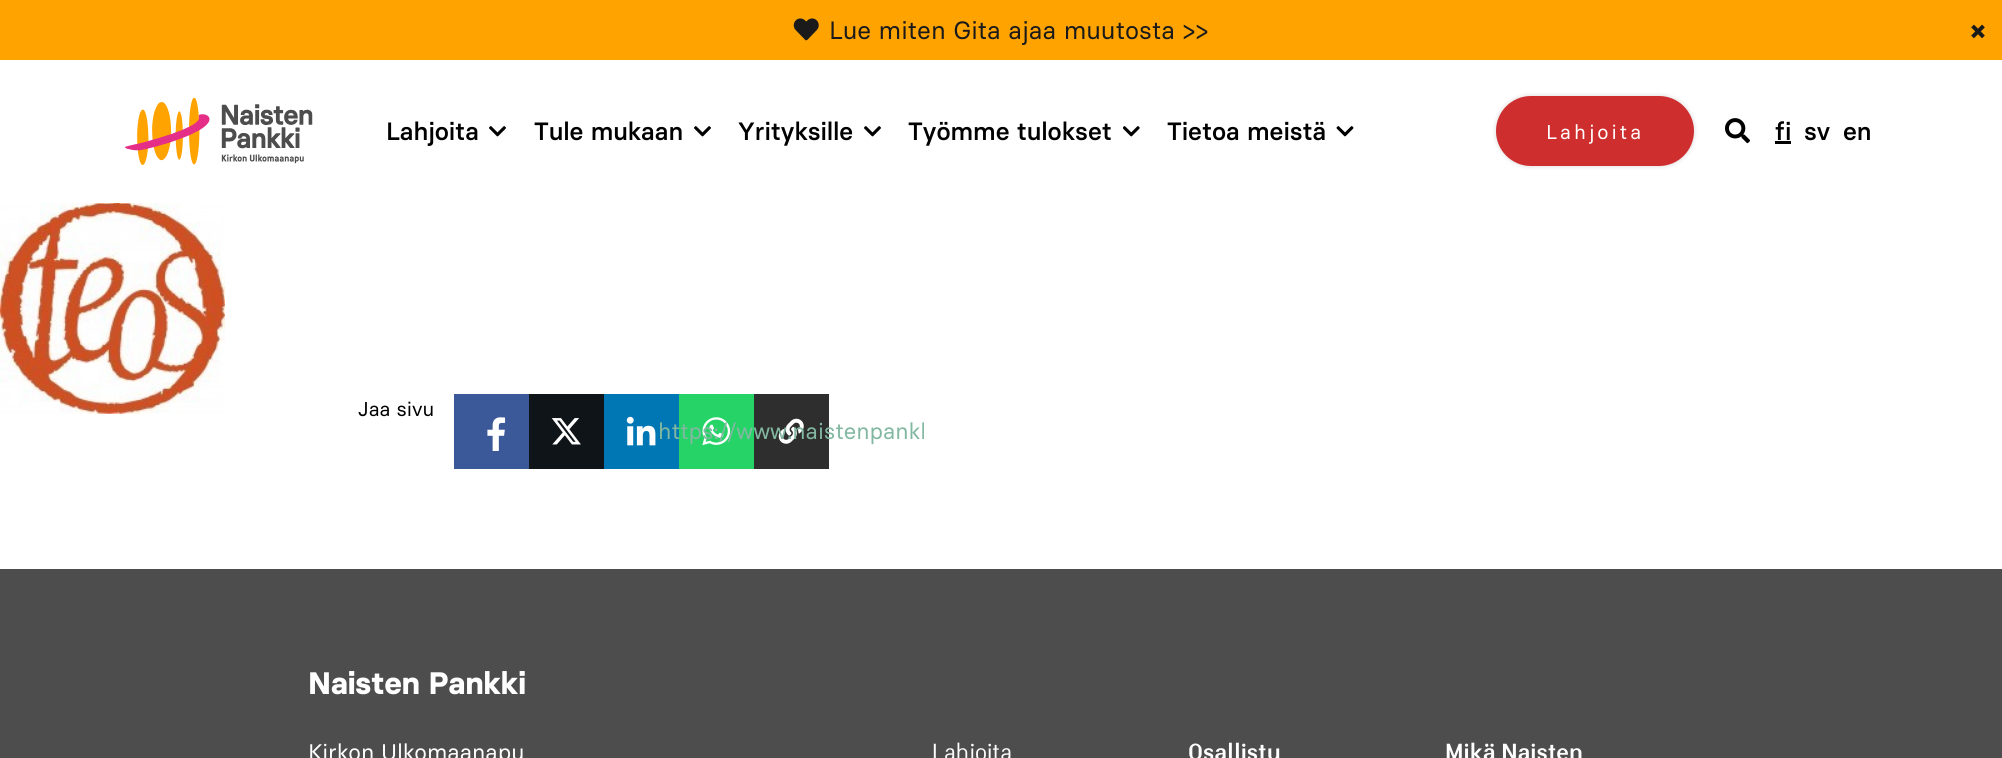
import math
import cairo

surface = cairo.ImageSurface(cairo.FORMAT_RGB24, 2002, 758)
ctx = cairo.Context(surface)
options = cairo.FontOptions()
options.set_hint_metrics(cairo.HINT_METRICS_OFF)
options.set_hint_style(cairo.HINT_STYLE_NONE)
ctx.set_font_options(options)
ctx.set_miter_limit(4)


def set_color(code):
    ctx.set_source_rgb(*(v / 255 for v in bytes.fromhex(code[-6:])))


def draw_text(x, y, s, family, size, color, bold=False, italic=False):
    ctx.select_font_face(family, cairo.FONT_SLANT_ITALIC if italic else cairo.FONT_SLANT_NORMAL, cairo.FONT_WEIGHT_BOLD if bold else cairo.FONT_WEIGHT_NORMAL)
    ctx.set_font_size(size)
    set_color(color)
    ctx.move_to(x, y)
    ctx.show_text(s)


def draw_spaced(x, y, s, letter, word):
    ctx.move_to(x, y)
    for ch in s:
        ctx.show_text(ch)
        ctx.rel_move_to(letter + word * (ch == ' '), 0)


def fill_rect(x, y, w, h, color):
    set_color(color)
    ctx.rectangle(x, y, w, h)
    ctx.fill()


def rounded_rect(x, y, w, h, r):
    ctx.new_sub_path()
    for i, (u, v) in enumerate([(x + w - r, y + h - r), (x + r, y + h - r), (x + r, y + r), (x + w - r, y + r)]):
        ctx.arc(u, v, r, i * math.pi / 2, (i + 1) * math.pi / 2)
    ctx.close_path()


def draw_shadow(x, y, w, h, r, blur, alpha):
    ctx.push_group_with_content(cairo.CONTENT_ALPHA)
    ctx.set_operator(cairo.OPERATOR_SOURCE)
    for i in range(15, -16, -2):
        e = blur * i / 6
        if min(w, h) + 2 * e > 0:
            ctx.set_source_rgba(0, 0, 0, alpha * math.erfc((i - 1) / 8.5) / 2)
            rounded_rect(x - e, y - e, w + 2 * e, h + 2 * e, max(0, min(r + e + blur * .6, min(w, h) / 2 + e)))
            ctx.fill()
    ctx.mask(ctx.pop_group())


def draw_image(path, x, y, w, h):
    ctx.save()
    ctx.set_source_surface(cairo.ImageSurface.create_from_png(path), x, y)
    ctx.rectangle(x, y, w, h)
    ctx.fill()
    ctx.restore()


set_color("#ffffff")
ctx.paint()
fill_rect(0, 0, 2002, 60, "#ffa300")
draw_image("assets/img1.png", 793, 18, 26, 23)
draw_text(829, 39, "Lue miten Gita ajaa muutosta >>", "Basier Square", 25, "#1a1a1a")
draw_text(1971, 41, "×", "Basier Square", 30, "#1a1a1a", bold=True)
draw_image("assets/img2.png", 125, 98, 188, 67)
draw_text(386, 140, "Lahjoita", "Basier Square Medium", 25, "#000000")
draw_image("assets/img3.png", 489, 126, 17, 11)
draw_text(534, 140, "Tule mukaan", "Basier Square Medium", 25, "#000000")
draw_image("assets/img3.png", 694, 126, 17, 11)
draw_text(738, 140, "Yrityksille", "Basier Square Medium", 25, "#000000")
draw_image("assets/img3.png", 864, 126, 17, 11)
draw_text(908, 140, "Työmme tulokset", "Basier Square Medium", 25, "#000000")
draw_image("assets/img4.png", 1123, 126, 17, 11)
draw_text(1167, 140, "Tietoa meistä", "Basier Square Medium", 25, "#000000")
draw_image("assets/img5.png", 1336, 126, 18, 11)
set_color("#000000")
draw_shadow(1496, 96, 198, 70, 35, 2.5, 0.16)
set_color("#cf2e2e")
rounded_rect(1496, 96, 198, 70, 35)
ctx.fill()
ctx.select_font_face("Basier Square")
ctx.set_font_size(20)
set_color("#ffffff")
draw_spaced(1546, 139, "Lahjoita", 3, 0)
draw_image("assets/img6.png", 1725, 118, 25, 26)
draw_text(1775, 140, "fi", "Basier Square Medium", 25, "#000000")
fill_rect(1775, 141, 16, 3, "#000000")
draw_text(1804, 140, "sv", "Basier Square Medium", 25, "#000000")
draw_text(1843, 140, "en", "Basier Square Medium", 25, "#000000")
draw_image("assets/img7.png", 0, 203, 225, 211)
draw_text(358, 416, "Jaa sivu", "Basier Square", 20, "#000000")
fill_rect(454, 394, 75, 75, "#3b5998")
draw_image("assets/img8.png", 487, 417, 19, 34)
fill_rect(529, 394, 75, 75, "#0f1419")
draw_image("assets/img9.png", 551, 418, 30, 27)
fill_rect(604, 394, 75, 75, "#0077b5")
draw_image("assets/img10.png", 626, 416, 30, 30)
fill_rect(679, 394, 75, 75, "#25d366")
draw_image("assets/img11.png", 702, 417, 29, 29)
fill_rect(754, 394, 75, 75, "#2e2e2e")
draw_image("assets/img12.png", 778, 418, 26, 26)
ctx.save()
ctx.rectangle(658, 418, 266, 28)
ctx.clip()
draw_text(658, 439, "https://www.naistenpankk", "Basier Square", 22.5, "#82b8a1")
ctx.restore()
fill_rect(0, 569, 2002, 189, "#4d4d4d")
draw_text(308, 694, "Naisten Pankki", "Basier Square", 31, "#ffffff", bold=True)
draw_text(308, 760, "Kirkon Ulkomaanapu", "Basier Square", 22.5, "#ffffff")
draw_text(932, 760, "Lahjoita", "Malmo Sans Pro", 22.5, "#ffffff")
draw_text(1188, 760, "Osallistu", "Malmo Sans Pro", 22.5, "#ffffff", bold=True)
draw_text(1445, 760, "Mikä Naisten", "Malmo Sans Pro", 22.5, "#ffffff", bold=True)
surface.write_to_png("output.png")
